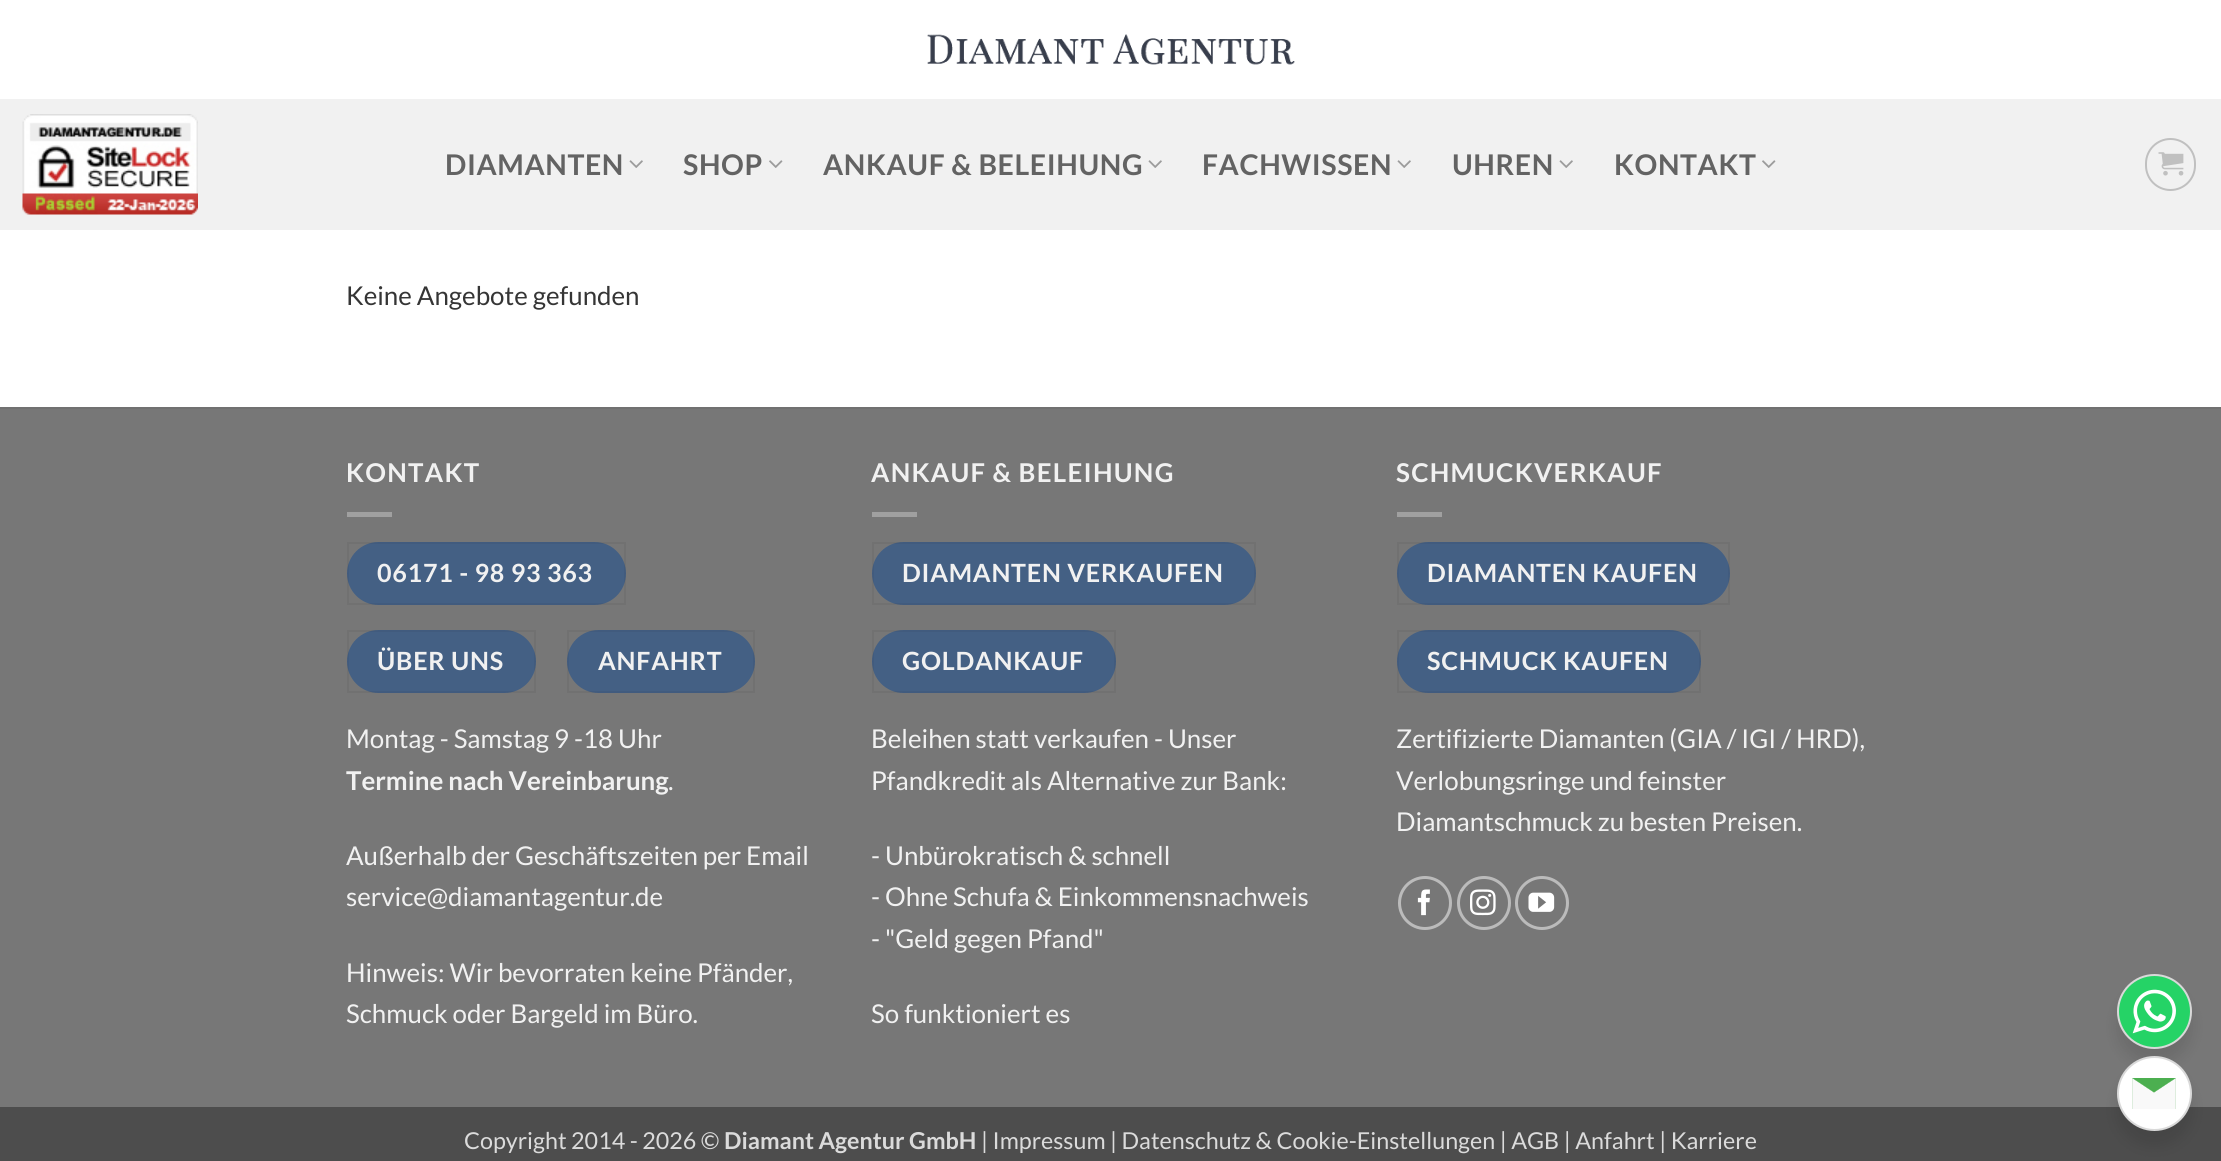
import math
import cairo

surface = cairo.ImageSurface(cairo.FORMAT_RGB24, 2221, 1161)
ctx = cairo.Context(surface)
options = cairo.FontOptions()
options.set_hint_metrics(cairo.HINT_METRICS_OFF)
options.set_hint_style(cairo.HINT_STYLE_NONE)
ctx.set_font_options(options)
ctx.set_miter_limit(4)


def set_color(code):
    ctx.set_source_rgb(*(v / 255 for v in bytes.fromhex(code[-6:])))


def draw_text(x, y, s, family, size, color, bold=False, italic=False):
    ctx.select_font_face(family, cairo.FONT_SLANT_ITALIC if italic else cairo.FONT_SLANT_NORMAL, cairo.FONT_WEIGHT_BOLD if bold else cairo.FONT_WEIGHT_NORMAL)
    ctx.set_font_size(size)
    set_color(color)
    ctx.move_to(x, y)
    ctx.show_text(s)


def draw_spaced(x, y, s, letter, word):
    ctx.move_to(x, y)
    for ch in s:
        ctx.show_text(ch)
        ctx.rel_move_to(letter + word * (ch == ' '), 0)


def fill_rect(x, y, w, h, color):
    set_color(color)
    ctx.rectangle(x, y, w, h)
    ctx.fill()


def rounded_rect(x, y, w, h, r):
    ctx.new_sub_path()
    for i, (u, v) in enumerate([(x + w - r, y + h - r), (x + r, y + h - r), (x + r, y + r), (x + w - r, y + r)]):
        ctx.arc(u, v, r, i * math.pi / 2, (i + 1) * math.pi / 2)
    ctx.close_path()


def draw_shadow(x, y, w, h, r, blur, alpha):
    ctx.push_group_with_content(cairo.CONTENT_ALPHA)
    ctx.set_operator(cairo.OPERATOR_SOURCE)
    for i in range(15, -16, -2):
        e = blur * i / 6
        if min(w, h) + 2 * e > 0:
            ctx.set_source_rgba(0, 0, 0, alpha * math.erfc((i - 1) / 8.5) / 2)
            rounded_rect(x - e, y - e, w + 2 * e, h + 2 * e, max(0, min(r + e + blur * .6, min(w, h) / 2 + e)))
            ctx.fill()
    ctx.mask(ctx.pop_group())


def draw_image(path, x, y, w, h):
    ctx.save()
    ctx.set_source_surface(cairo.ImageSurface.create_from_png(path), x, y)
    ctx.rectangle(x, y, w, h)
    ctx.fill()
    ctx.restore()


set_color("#ffffff")
ctx.paint()
draw_image("assets/img1.png", 927, 34, 368, 31)
fill_rect(0, 99, 2221, 131, "#f1f1f1")
draw_image("assets/img2.png", 22, 114, 176, 101)
ctx.select_font_face("Lato", cairo.FONT_SLANT_NORMAL, cairo.FONT_WEIGHT_BOLD)
ctx.set_font_size(28.5)
set_color("#636363")
draw_spaced(445, 175, "DIAMANTEN", 0.6, 0)
draw_image("assets/img3.png", 629, 160, 14, 8)
draw_spaced(683, 175, "SHOP", 0.6, 0)
draw_image("assets/img4.png", 769, 160, 14, 8)
draw_spaced(823, 175, "ANKAUF & BELEIHUNG", 0.6, 0)
draw_image("assets/img3.png", 1148, 160, 14, 8)
draw_spaced(1202, 175, "FACHWISSEN", 0.6, 0)
draw_image("assets/img3.png", 1397, 160, 14, 8)
draw_spaced(1452, 175, "UHREN", 0.6, 0)
draw_image("assets/img3.png", 1559, 160, 14, 8)
draw_spaced(1614, 175, "KONTAKT", 0.6, 0)
draw_image("assets/img4.png", 1762, 160, 14, 8)
rounded_rect(2146, 139, 49, 51, 24.5)
set_color("#c0c0c0")
ctx.stroke()
draw_image("assets/img5.png", 2158, 152, 26, 24)
draw_text(346, 305, "Keine Angebote gefunden", "Lato", 25.9, "#353535")
fill_rect(0, 409, 2221, 698, "#777777")
fill_rect(0, 407, 2221, 2, "#717171")
ctx.select_font_face("Lato", cairo.FONT_SLANT_NORMAL, cairo.FONT_WEIGHT_BOLD)
set_color("#f1f1f1")
draw_spaced(346, 482, "KONTAKT", 1.25, 0)
fill_rect(347, 512, 45, 5, "#a0a0a0")
set_color("#446084")
rounded_rect(347, 542, 279, 63, 31.5)
ctx.fill()
ctx.rectangle(348, 543, 277, 61)
ctx.set_source_rgba(0, 0, 0, 0.05)
ctx.stroke()
ctx.set_font_size(25.1)
set_color("#f1f1f1")
draw_spaced(377, 582, "06171 - 98 93 363", 0.75, 0)
set_color("#446084")
rounded_rect(347, 630, 189, 63, 31.5)
ctx.fill()
ctx.rectangle(348, 631, 187, 61)
ctx.set_source_rgba(0, 0, 0, 0.05)
ctx.stroke()
set_color("#f1f1f1")
draw_spaced(377, 670, "ÜBER UNS", 0.75, 0)
set_color("#446084")
rounded_rect(567, 630, 188, 63, 31.5)
ctx.fill()
ctx.rectangle(568, 631, 186, 61)
ctx.set_source_rgba(0, 0, 0, 0.05)
ctx.stroke()
set_color("#f1f1f1")
draw_spaced(598, 670, "ANFAHRT", 0.75, 0)
draw_text(346, 748, "Montag - Samstag 9 -18 Uhr", "Lato", 25.9, "#f1f1f1")
draw_text(346, 790, "Termine nach Vereinbarung", "Lato", 25.9, "#f1f1f1", bold=True)
draw_text(668, 790, ".", "Lato", 25.9, "#f1f1f1")
draw_text(346, 865, "Außerhalb der Geschäftszeiten per Email", "Lato", 25.9, "#f1f1f1")
draw_text(346, 906, "service@diamantagentur.de", "Lato", 25.9, "#f1f1f1")
draw_text(346, 982, "Hinweis: Wir bevorraten keine Pfänder,", "Lato", 25.9, "#f1f1f1")
draw_text(346, 1023, "Schmuck oder Bargeld im Büro.", "Lato", 25.9, "#f1f1f1")
ctx.select_font_face("Lato", cairo.FONT_SLANT_NORMAL, cairo.FONT_WEIGHT_BOLD)
draw_spaced(871, 482, "ANKAUF & BELEIHUNG", 1.25, 0)
fill_rect(872, 512, 45, 5, "#a0a0a0")
set_color("#446084")
rounded_rect(872, 542, 384, 63, 31.5)
ctx.fill()
ctx.rectangle(873, 543, 382, 61)
ctx.set_source_rgba(0, 0, 0, 0.05)
ctx.stroke()
ctx.set_font_size(25.1)
set_color("#f1f1f1")
draw_spaced(902, 582, "DIAMANTEN VERKAUFEN", 0.75, 0)
set_color("#446084")
rounded_rect(872, 630, 244, 63, 31.5)
ctx.fill()
ctx.rectangle(873, 631, 242, 61)
ctx.set_source_rgba(0, 0, 0, 0.05)
ctx.stroke()
set_color("#f1f1f1")
draw_spaced(902, 670, "GOLDANKAUF", 0.75, 0)
draw_text(871, 748, "Beleihen statt verkaufen - Unser", "Lato", 25.9, "#f1f1f1")
draw_text(871, 790, "Pfandkredit als Alternative zur Bank:", "Lato", 25.9, "#f1f1f1")
draw_text(871, 865, "- Unbürokratisch & schnell", "Lato", 25.9, "#f1f1f1")
draw_text(871, 906, "- Ohne Schufa & Einkommensnachweis", "Lato", 25.9, "#f1f1f1")
draw_text(871, 948, "- \"Geld gegen Pfand\"", "Lato", 25.9, "#f1f1f1")
draw_text(871, 1023, "So funktioniert es", "Lato", 25.9, "#f1f1f1")
ctx.select_font_face("Lato", cairo.FONT_SLANT_NORMAL, cairo.FONT_WEIGHT_BOLD)
draw_spaced(1396, 482, "SCHMUCKVERKAUF", 1.25, 0)
fill_rect(1397, 512, 45, 5, "#a0a0a0")
set_color("#446084")
rounded_rect(1397, 542, 333, 63, 31.5)
ctx.fill()
ctx.rectangle(1398, 543, 331, 61)
ctx.set_source_rgba(0, 0, 0, 0.05)
ctx.stroke()
ctx.set_font_size(25.1)
set_color("#f1f1f1")
draw_spaced(1427, 582, "DIAMANTEN KAUFEN", 0.75, 0)
set_color("#446084")
rounded_rect(1397, 630, 304, 63, 31.5)
ctx.fill()
ctx.rectangle(1398, 631, 302, 61)
ctx.set_source_rgba(0, 0, 0, 0.05)
ctx.stroke()
set_color("#f1f1f1")
draw_spaced(1427, 670, "SCHMUCK KAUFEN", 0.75, 0)
draw_text(1396, 748, "Zertifizierte Diamanten (GIA / IGI / HRD),", "Lato", 25.9, "#f1f1f1")
draw_text(1396, 790, "Verlobungsringe und feinster", "Lato", 25.9, "#f1f1f1")
draw_text(1396, 831, "Diamantschmuck zu besten Preisen.", "Lato", 25.9, "#f1f1f1")
ctx.new_path()
ctx.arc(1425, 903, 25.5, 0, 2 * math.pi)
set_color("#bbbbbb")
ctx.set_line_width(3)
ctx.stroke()
draw_image("assets/img6.png", 1417, 889, 13, 27)
ctx.arc(1484, 903, 25.5, 0, 2 * math.pi)
ctx.stroke()
draw_image("assets/img7.png", 1470, 889, 26, 27)
ctx.arc(1542, 903, 25.5, 0, 2 * math.pi)
ctx.stroke()
draw_image("assets/img8.png", 1528, 892, 27, 20)
set_color("#000000")
draw_shadow(2117, 989, 75, 75, 37.5, 7.5, 0.1)
set_color("#25d366")
ctx.arc(2154.5, 1011.5, 36.5, 0, 2 * math.pi)
ctx.fill_preserve()
set_color("#d9d9d9")
ctx.set_line_width(2)
ctx.stroke()
draw_image("assets/img9.png", 2132, 989, 44, 45)
fill_rect(0, 1107, 2221, 54, "#4d4d4d")
draw_text(464, 1149, "Copyright 2014 - 2026 ©", "Lato", 23.3, "#dbdbdb")
draw_text(724, 1149, "Diamant Agentur GmbH", "Lato", 23.3, "#dbdbdb", bold=True)
draw_text(981, 1149, "| Impressum | Datenschutz & Cookie-Einstellungen | AGB | Anfahrt | Karriere", "Lato", 23.3, "#dbdbdb")
set_color("#000000")
draw_shadow(2117, 1071, 75, 75, 37.5, 7.5, 0.1)
set_color("#ffffff")
ctx.arc(2154.5, 1093.5, 36.5, 0, 2 * math.pi)
ctx.fill_preserve()
set_color("#d9d9d9")
ctx.stroke()
draw_image("assets/img10.png", 2132, 1078, 44, 31)
surface.write_to_png("output.png")
